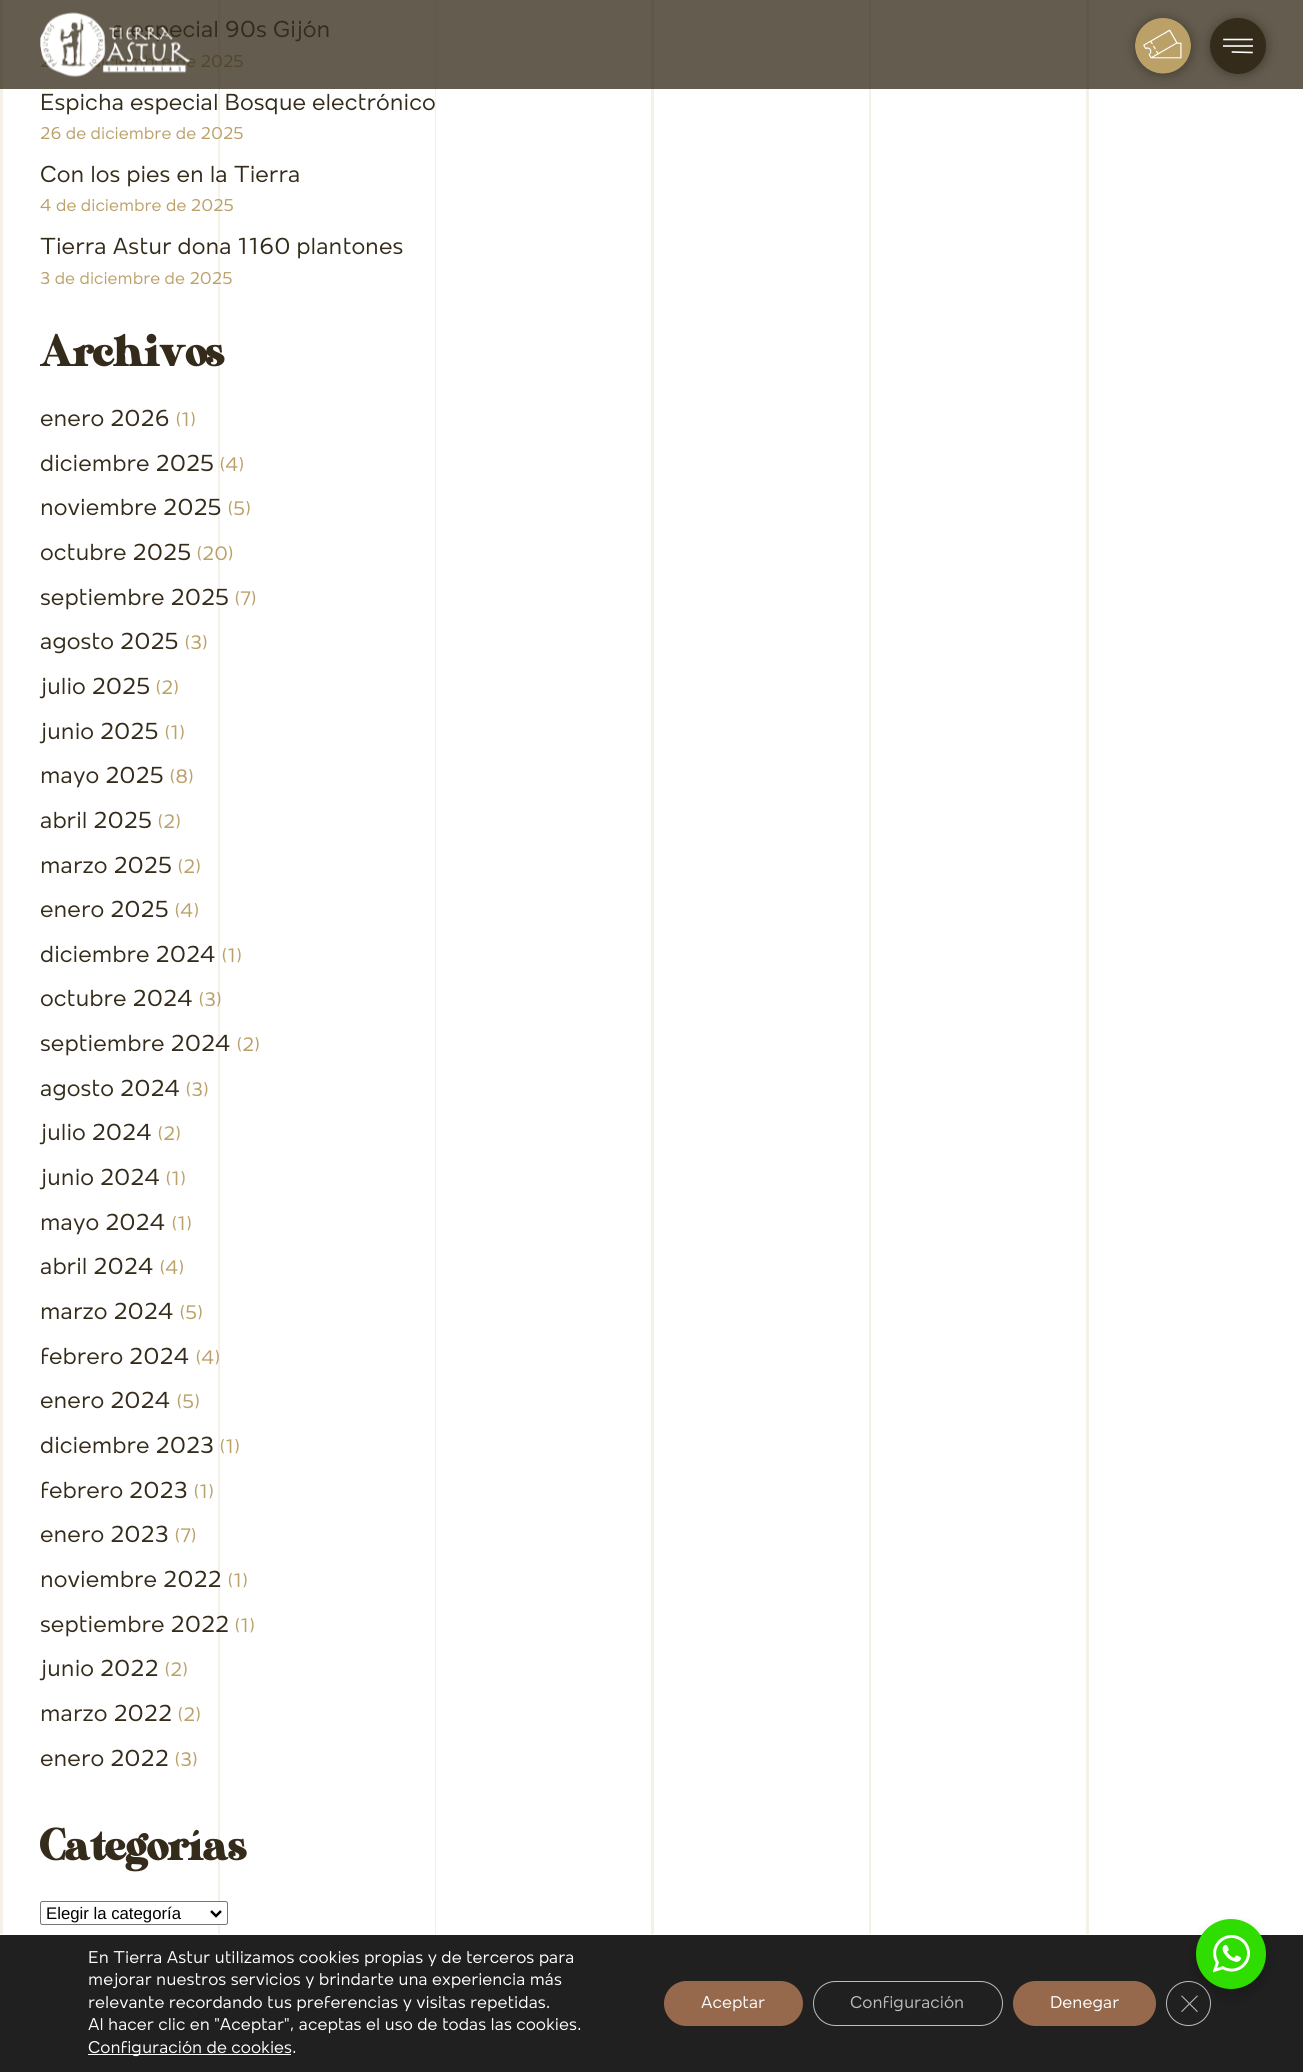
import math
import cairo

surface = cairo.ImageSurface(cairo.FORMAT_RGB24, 1303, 2072)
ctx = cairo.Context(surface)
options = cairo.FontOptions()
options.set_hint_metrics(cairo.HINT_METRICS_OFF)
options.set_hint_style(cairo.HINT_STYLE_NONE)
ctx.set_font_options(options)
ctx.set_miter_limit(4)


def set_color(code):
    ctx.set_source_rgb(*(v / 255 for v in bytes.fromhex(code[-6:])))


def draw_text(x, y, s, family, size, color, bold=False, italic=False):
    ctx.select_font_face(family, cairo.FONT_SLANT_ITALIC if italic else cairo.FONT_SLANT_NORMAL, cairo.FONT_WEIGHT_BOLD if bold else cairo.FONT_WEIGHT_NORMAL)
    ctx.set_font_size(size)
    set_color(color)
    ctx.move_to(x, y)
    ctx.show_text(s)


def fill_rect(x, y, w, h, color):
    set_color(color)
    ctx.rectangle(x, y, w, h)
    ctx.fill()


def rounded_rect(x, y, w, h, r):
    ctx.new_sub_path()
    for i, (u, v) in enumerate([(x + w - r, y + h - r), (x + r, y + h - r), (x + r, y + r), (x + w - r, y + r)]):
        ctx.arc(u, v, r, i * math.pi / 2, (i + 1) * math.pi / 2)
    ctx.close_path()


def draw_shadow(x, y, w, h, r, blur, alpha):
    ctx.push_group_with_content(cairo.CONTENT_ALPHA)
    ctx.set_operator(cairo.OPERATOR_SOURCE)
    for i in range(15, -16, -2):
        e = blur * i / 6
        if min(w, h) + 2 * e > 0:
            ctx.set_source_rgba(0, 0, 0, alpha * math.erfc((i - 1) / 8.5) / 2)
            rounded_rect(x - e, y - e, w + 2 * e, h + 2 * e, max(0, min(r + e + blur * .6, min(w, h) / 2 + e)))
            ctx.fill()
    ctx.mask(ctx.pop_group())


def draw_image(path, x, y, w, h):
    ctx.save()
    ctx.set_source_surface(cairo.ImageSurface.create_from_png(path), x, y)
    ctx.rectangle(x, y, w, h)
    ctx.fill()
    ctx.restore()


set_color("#ffffff")
ctx.paint()
fill_rect(3, 0, 1300, 89, "#635c4f")
fill_rect(0, 89, 3, 1845, "#f5f1e9")
fill_rect(0, 0, 3, 89, "#60594a")
fill_rect(218, 89, 2, 1845, "#f5f1e9")
fill_rect(218, 0, 2, 89, "#60594a")
fill_rect(435, 89, 1, 1845, "#f5f1e9")
fill_rect(435, 0, 1, 89, "#60594a")
fill_rect(651, 89, 3, 1845, "#f5f1e9")
fill_rect(651, 0, 3, 89, "#60594a")
fill_rect(869, 89, 2, 1845, "#f5f1e9")
fill_rect(869, 0, 2, 89, "#60594a")
fill_rect(1086, 89, 3, 1845, "#f5f1e9")
fill_rect(1086, 0, 3, 89, "#60594a")
draw_text(112, 37, "a especial 90s Gijón", "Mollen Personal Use", 23.75, "#342b1a")
draw_text(40, 67, "29 de diciembre de 2025", "Mollen Personal Use", 17.5, "#53462c")
draw_image("assets/img1.png", 40, 12, 150, 65)
set_color("#241e12")
draw_shadow(1134, 18, 59, 58, 29, 5, 0.42)
draw_image("assets/img2.png", 1135, 18, 56, 56)
draw_shadow(1209, 18, 59, 58, 29, 5, 0.42)
set_color("#342b1a")
ctx.new_path()
ctx.move_to(1238, 18)
ctx.curve_to(1253, 18, 1266, 30, 1266, 46)
ctx.curve_to(1266, 61, 1253, 74, 1238, 74)
ctx.curve_to(1223, 74, 1210, 61, 1210, 46)
ctx.curve_to(1210, 30, 1223, 18, 1238, 18)
ctx.close_path()
ctx.fill()
ctx.new_path()
ctx.move_to(1224, 39.5)
ctx.line_to(1252, 39.5)
set_color("#ffffff")
ctx.set_line_width(1.6)
ctx.set_line_cap(cairo.LINE_CAP_SQUARE)
ctx.stroke()
fill_rect(1223, 45, 30, 2, "#d6d5d1")
ctx.new_path()
ctx.move_to(1232.5, 52)
ctx.line_to(1252, 52.5)
set_color("#ffffff")
ctx.stroke()
draw_text(40, 110, "Espicha especial Bosque electrónico", "Mollen Personal Use", 23.75, "#342b1a")
draw_text(40, 139, "26 de diciembre de 2025", "Mollen Personal Use", 17.5, "#bba169")
draw_text(40, 182, "Con los pies en la Tierra", "Mollen Personal Use", 23.75, "#342b1a")
draw_text(40, 211, "4 de diciembre de 2025", "Mollen Personal Use", 17.5, "#bba169")
draw_text(40, 254, "Tierra Astur dona 1160 plantones", "Mollen Personal Use", 23.75, "#342b1a")
draw_text(40, 284, "3 de diciembre de 2025", "Mollen Personal Use", 17.5, "#bba169")
draw_text(40, 366, "Archivos", "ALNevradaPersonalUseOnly", 40, "#342b1a", bold=True)
draw_text(40, 426, "enero 2026", "Mollen Personal Use", 23.75, "#342b1a")
draw_text(175, 426, "(1)", "Mollen Personal Use", 20, "#bba169")
draw_text(40, 471, "diciembre 2025", "Mollen Personal Use", 23.75, "#342b1a")
draw_text(219, 471, "(4)", "Mollen Personal Use", 20, "#bba169")
draw_text(40, 515, "noviembre 2025", "Mollen Personal Use", 23.75, "#342b1a")
draw_text(227, 515, "(5)", "Mollen Personal Use", 20, "#bba169")
draw_text(40, 560, "octubre 2025", "Mollen Personal Use", 23.75, "#342b1a")
draw_text(196, 560, "(20)", "Mollen Personal Use", 20, "#bba169")
draw_text(40, 605, "septiembre 2025", "Mollen Personal Use", 23.75, "#342b1a")
draw_text(234, 605, "(7)", "Mollen Personal Use", 20, "#bba169")
draw_text(40, 649, "agosto 2025", "Mollen Personal Use", 23.75, "#342b1a")
draw_text(184, 649, "(3)", "Mollen Personal Use", 20, "#bba169")
draw_text(40, 694, "julio 2025", "Mollen Personal Use", 23.75, "#342b1a")
draw_text(155, 694, "(2)", "Mollen Personal Use", 20, "#bba169")
draw_text(40, 739, "junio 2025", "Mollen Personal Use", 23.75, "#342b1a")
draw_text(164, 739, "(1)", "Mollen Personal Use", 20, "#bba169")
draw_text(40, 783, "mayo 2025", "Mollen Personal Use", 23.75, "#342b1a")
draw_text(169, 783, "(8)", "Mollen Personal Use", 20, "#bba169")
draw_text(40, 828, "abril 2025", "Mollen Personal Use", 23.75, "#342b1a")
draw_text(157, 828, "(2)", "Mollen Personal Use", 20, "#bba169")
draw_text(40, 873, "marzo 2025", "Mollen Personal Use", 23.75, "#342b1a")
draw_text(177, 873, "(2)", "Mollen Personal Use", 20, "#bba169")
draw_text(40, 917, "enero 2025", "Mollen Personal Use", 23.75, "#342b1a")
draw_text(174, 917, "(4)", "Mollen Personal Use", 20, "#bba169")
draw_text(40, 962, "diciembre 2024", "Mollen Personal Use", 23.75, "#342b1a")
draw_text(221, 962, "(1)", "Mollen Personal Use", 20, "#bba169")
draw_text(40, 1006, "octubre 2024", "Mollen Personal Use", 23.75, "#342b1a")
draw_text(198, 1006, "(3)", "Mollen Personal Use", 20, "#bba169")
draw_text(40, 1051, "septiembre 2024", "Mollen Personal Use", 23.75, "#342b1a")
draw_text(236, 1051, "(2)", "Mollen Personal Use", 20, "#bba169")
draw_text(40, 1096, "agosto 2024", "Mollen Personal Use", 23.75, "#342b1a")
draw_text(185, 1096, "(3)", "Mollen Personal Use", 20, "#bba169")
draw_text(40, 1140, "julio 2024", "Mollen Personal Use", 23.75, "#342b1a")
draw_text(157, 1140, "(2)", "Mollen Personal Use", 20, "#bba169")
draw_text(40, 1185, "junio 2024", "Mollen Personal Use", 23.75, "#342b1a")
draw_text(165, 1185, "(1)", "Mollen Personal Use", 20, "#bba169")
draw_text(40, 1230, "mayo 2024", "Mollen Personal Use", 23.75, "#342b1a")
draw_text(171, 1230, "(1)", "Mollen Personal Use", 20, "#bba169")
draw_text(40, 1274, "abril 2024", "Mollen Personal Use", 23.75, "#342b1a")
draw_text(159, 1274, "(4)", "Mollen Personal Use", 20, "#bba169")
draw_text(40, 1319, "marzo 2024", "Mollen Personal Use", 23.75, "#342b1a")
draw_text(179, 1319, "(5)", "Mollen Personal Use", 20, "#bba169")
draw_text(40, 1364, "febrero 2024", "Mollen Personal Use", 23.75, "#342b1a")
draw_text(195, 1364, "(4)", "Mollen Personal Use", 20, "#bba169")
draw_text(40, 1408, "enero 2024", "Mollen Personal Use", 23.75, "#342b1a")
draw_text(176, 1408, "(5)", "Mollen Personal Use", 20, "#bba169")
draw_text(40, 1453, "diciembre 2023", "Mollen Personal Use", 23.75, "#342b1a")
draw_text(219, 1453, "(1)", "Mollen Personal Use", 20, "#bba169")
draw_text(40, 1498, "febrero 2023", "Mollen Personal Use", 23.75, "#342b1a")
draw_text(193, 1498, "(1)", "Mollen Personal Use", 20, "#bba169")
draw_text(40, 1542, "enero 2023", "Mollen Personal Use", 23.75, "#342b1a")
draw_text(174, 1542, "(7)", "Mollen Personal Use", 20, "#bba169")
draw_text(40, 1587, "noviembre 2022", "Mollen Personal Use", 23.75, "#342b1a")
draw_text(227, 1587, "(1)", "Mollen Personal Use", 20, "#bba169")
draw_text(40, 1632, "septiembre 2022", "Mollen Personal Use", 23.75, "#342b1a")
draw_text(234, 1632, "(1)", "Mollen Personal Use", 20, "#bba169")
draw_text(40, 1676, "junio 2022", "Mollen Personal Use", 23.75, "#342b1a")
draw_text(164, 1676, "(2)", "Mollen Personal Use", 20, "#bba169")
draw_text(40, 1721, "marzo 2022", "Mollen Personal Use", 23.75, "#342b1a")
draw_text(177, 1721, "(2)", "Mollen Personal Use", 20, "#bba169")
draw_text(40, 1766, "enero 2022", "Mollen Personal Use", 23.75, "#342b1a")
draw_text(174, 1766, "(3)", "Mollen Personal Use", 20, "#bba169")
draw_text(40, 1860, "Categorías", "ALNevradaPersonalUseOnly", 40, "#342b1a", bold=True)
set_color("#ffffff")
rounded_rect(40.5, 1901.5, 187, 23, 2)
ctx.fill_preserve()
set_color("#767676")
ctx.set_line_width(1)
ctx.set_line_cap(cairo.LINE_CAP_BUTT)
ctx.stroke()
ctx.new_path()
ctx.move_to(211, 1911)
ctx.line_to(216, 1916)
ctx.line_to(221, 1911)
set_color("#000000")
ctx.set_line_width(2.5)
ctx.stroke()
draw_text(46, 1919, "Elegir la categoría", "Liberation Sans", 16.75, "#000000")
fill_rect(0, 1935, 1303, 137, "#202020")
draw_text(88, 1963, "En Tierra Astur utilizamos cookies propias y de terceros para", "Mollen Personal Use", 17.5, "#ffffff")
draw_text(88, 1985, "mejorar nuestros servicios y brindarte una experiencia más", "Mollen Personal Use", 17.5, "#ffffff")
draw_text(88, 2008, "relevante recordando tus preferencias y visitas repetidas.", "Mollen Personal Use", 17.5, "#ffffff")
draw_text(88, 2030, "Al hacer clic en \"Aceptar\", aceptas el uso de todas las cookies.", "Mollen Personal Use", 17.5, "#ffffff")
fill_rect(88, 2054, 203, 1, "#ffffff")
draw_text(88, 2053, "Configuración de cookies.", "Mollen Personal Use", 17.5, "#ffffff")
set_color("#96694c")
rounded_rect(664, 1981, 139, 45, 22.5)
ctx.fill()
draw_text(701, 2008, "Aceptar", "Mollen Personal Use", 17.5, "#ffffff")
rounded_rect(813.5, 1981.5, 189, 44, 22)
set_color("#bcbcbc")
ctx.set_line_width(1)
ctx.stroke()
draw_text(850, 2008, "Configuración", "Mollen Personal Use", 17.5, "#bcbcbc")
set_color("#96694c")
rounded_rect(1013, 1981, 143, 45, 22.5)
ctx.fill()
draw_text(1050, 2008, "Denegar", "Mollen Personal Use", 17.5, "#ffffff")
ctx.new_path()
ctx.arc(1188.5, 2003.5, 22, 0, 2 * math.pi)
set_color("#bcbcbc")
ctx.stroke()
ctx.new_path()
ctx.move_to(1197, 1995.5)
ctx.line_to(1198, 1996)
ctx.line_to(1182, 2012)
ctx.line_to(1181, 2011.5)
ctx.close_path()
ctx.fill()
ctx.new_path()
ctx.move_to(1181, 1996)
ctx.line_to(1182, 1995.5)
ctx.line_to(1198, 2011.5)
ctx.line_to(1197, 2012)
ctx.close_path()
ctx.fill()
set_color("#000000")
draw_shadow(1194, 1924, 75, 75, 37.5, 5, 0.14)
set_color("#30dd00")
ctx.arc(1231, 1954, 35, 0, 2 * math.pi)
ctx.fill()
draw_image("assets/img3.png", 1213, 1935, 37, 38)
surface.write_to_png("output.png")
